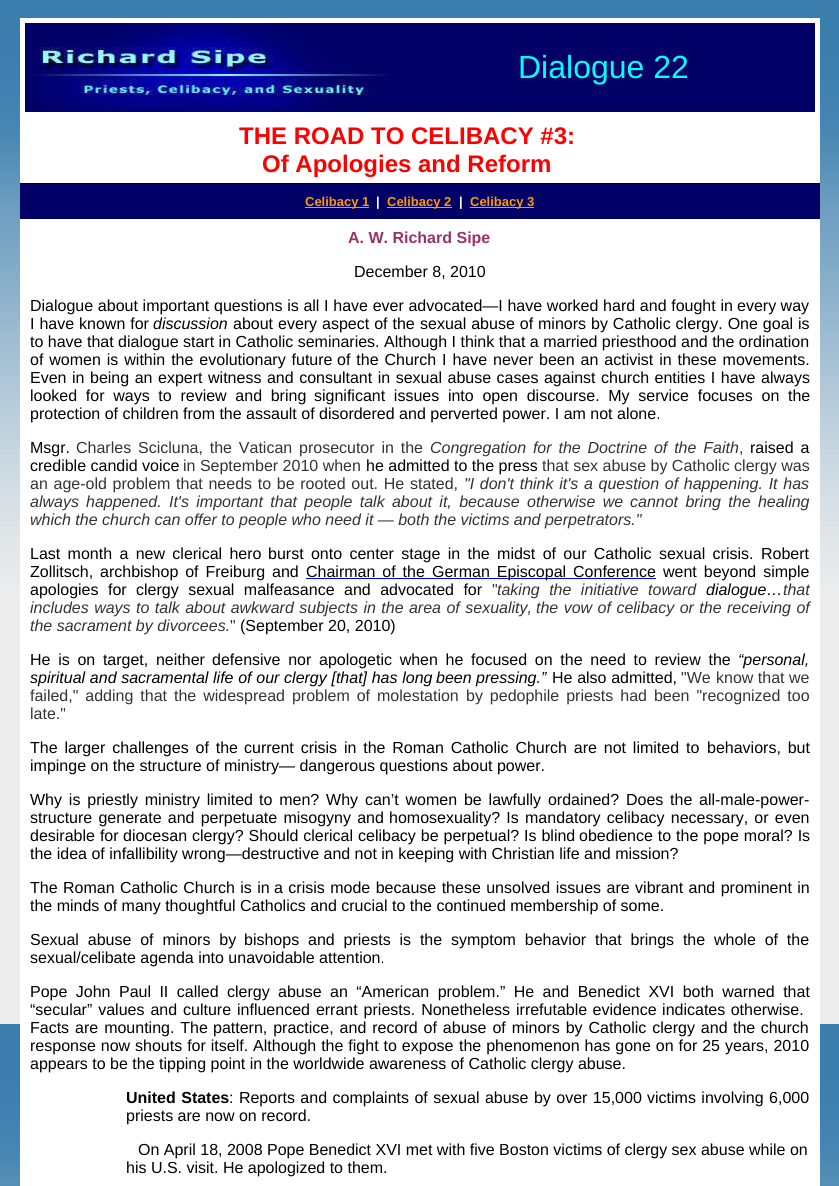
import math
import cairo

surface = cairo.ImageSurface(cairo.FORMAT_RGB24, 839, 1186)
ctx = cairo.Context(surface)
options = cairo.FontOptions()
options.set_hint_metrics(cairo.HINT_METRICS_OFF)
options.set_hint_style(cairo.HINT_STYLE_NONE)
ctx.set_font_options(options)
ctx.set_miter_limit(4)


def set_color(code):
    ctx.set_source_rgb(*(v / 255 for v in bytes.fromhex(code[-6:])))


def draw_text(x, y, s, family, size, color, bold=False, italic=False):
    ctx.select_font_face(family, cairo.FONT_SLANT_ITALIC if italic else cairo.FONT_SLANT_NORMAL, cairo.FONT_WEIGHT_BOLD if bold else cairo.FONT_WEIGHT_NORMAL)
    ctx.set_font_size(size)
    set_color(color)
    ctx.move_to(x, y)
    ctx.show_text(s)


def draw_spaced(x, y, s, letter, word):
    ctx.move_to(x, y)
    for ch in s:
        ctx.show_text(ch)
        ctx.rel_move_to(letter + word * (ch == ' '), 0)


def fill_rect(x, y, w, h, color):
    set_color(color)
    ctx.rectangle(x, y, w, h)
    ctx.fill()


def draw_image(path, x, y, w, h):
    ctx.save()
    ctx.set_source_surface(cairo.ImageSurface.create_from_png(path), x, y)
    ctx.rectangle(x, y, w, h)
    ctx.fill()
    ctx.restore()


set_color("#ffffff")
ctx.paint()
draw_image("assets/img1.png", 0, 0, 839, 1186)
fill_rect(20, 18, 800, 165, "#ffffff")
fill_rect(25, 23, 790, 89, "#000066")
draw_image("assets/img2.png", 33, 23, 356, 89)
draw_text(518, 78, "Dialogue 22", "Liberation Sans", 32, "#00ffff")
fill_rect(20, 183, 800, 1, "#000000")
draw_text(239, 144, "THE ROAD TO CELIBACY #3:", "Liberation Sans", 24, "#ff0000", bold=True)
draw_text(262, 172, "Of Apologies and Reform", "Liberation Sans", 24, "#ff0000", bold=True)
fill_rect(20, 219, 800, 967, "#ffffff")
fill_rect(20, 184, 800, 35, "#000066")
fill_rect(305, 207, 64, 1, "#ff9900")
draw_text(305, 206, "Celibacy 1", "Liberation Sans", 13, "#ff9900", bold=True)
draw_text(376, 206, "|", "Liberation Sans", 13, "#ffffff", bold=True)
fill_rect(387, 207, 65, 1, "#ff9900")
draw_text(387, 206, "Celibacy 2", "Liberation Sans", 13, "#ff9900", bold=True)
draw_text(459, 206, "|", "Liberation Sans", 13, "#ffffff", bold=True)
fill_rect(470, 207, 64, 1, "#ff9900")
draw_text(470, 206, "Celibacy 3", "Liberation Sans", 13, "#ff9900", bold=True)
draw_text(348, 243, "A. W. Richard Sipe", "Liberation Sans", 16, "#993366", bold=True)
draw_text(354, 277, "December 8, 2010", "Liberation Sans", 16, "#000000")
draw_spaced(30, 311, "Dialogue about important questions is all I have ever advocated—I have worked hard and fought in", 0, 0.25)
draw_text(737, 311, "every way", "Liberation Sans", 16, "#000000")
draw_spaced(30, 329, "I have known for", 0, 0.5)
draw_text(153, 329, "discussion", "Liberation Sans", 16, "#000000", italic=True)
ctx.select_font_face("Liberation Sans")
draw_spaced(233, 329, "about every aspect of the", 0, 0.5)
draw_spaced(420, 329, "sexual abuse of minors by Catholic clergy. One goal is", 0, 0.5)
draw_text(30, 347, "to have that dialogue start in Catholic seminaries. Although I think that a married priesthood and the ordination", "Liberation Sans", 16, "#000000")
draw_spaced(30, 365, "of women is within the evolutionary future", 0, 1.5)
draw_spaced(337, 365, "of the Church I have never been an activist in these movements.", 0, 1.5)
draw_spaced(30, 383, "Even in", 0, 1.1)
draw_spaced(90, 383, "being an expert witness and consultant in sexual abuse cases against", 0, 1.1)
draw_spaced(601, 383, "church entities I have always", 0, 1.1)
draw_spaced(30, 401, "looked for ways to review and bring", 0, 4.25)
draw_spaced(314, 401, "significant issues into open discourse. My service focuses on the", 0, 4.25)
draw_text(30, 419, "protection of children from the assault of disordered and perverted power. I am not alone.", "Liberation Sans", 16, "#000000")
draw_text(30, 453, "Msgr.", "Liberation Sans", 16, "#000000")
set_color("#333333")
draw_spaced(76, 453, "Charles Scicluna, the Vatican", 0, 2.4)
draw_spaced(299, 453, "prosecutor in the", 0, 2.4)
ctx.select_font_face("Liberation Sans", cairo.FONT_SLANT_ITALIC)
draw_spaced(430, 453, "Congregation for the Doctrine of the Faith", 0, 2.4)
draw_text(739, 453, ",", "Liberation Sans", 16, "#333333")
set_color("#000000")
draw_spaced(750, 453, "raised a", 0, 2.4)
draw_text(30, 471, "credible candid voice", "Liberation Sans", 16, "#000000")
draw_text(183, 471, "in September 2010 when", "Liberation Sans", 16, "#333333")
draw_text(366, 471, "he admitted to the press", "Liberation Sans", 16, "#000000")
draw_text(542, 471, "that sex abuse by Catholic clergy was", "Liberation Sans", 16, "#333333")
draw_spaced(30, 489, "an age-old problem that needs to be rooted out. He", 0, 1.25)
draw_text(410, 489, "stated,", "Liberation Sans", 16, "#333333")
ctx.select_font_face("Liberation Sans", cairo.FONT_SLANT_ITALIC)
draw_spaced(464, 489, "\"I don't think it's a question of happening. It has", 0, 1.25)
draw_text(30, 507, "always", "Liberation Sans", 16, "#333333", italic=True)
draw_spaced(86, 507, "happened. It's important that people talk about it, because otherwise we", 0, 2.9)
draw_spaced(630, 507, "cannot bring the healing", 0, 2.9)
draw_text(30, 525, "which the church can offer to people who need it — both the victims and perpetrators.\"", "Liberation Sans", 16, "#333333", italic=True)
ctx.select_font_face("Liberation Sans")
set_color("#000000")
draw_spaced(30, 559, "Last month a new clerical hero", 0, 2.9)
draw_spaced(268, 559, "burst onto center stage in the midst of our Catholic sexual crisis.", 0, 2.9)
draw_text(761, 559, "Robert", "Liberation Sans", 16, "#000000")
draw_text(30, 577, "Zollitsch,", "Liberation Sans", 16, "#000000")
draw_spaced(100, 577, "archbishop of Freiburg and", 0, 2.5)
draw_spaced(306, 577, "Chairman of the", 0, 2.5)
fill_rect(306, 578, 350, 1, "#0000ff")
set_color("#000000")
draw_spaced(432, 577, "German Episcopal Conference", 0, 2.5)
draw_spaced(663, 577, "went beyond simple", 0, 2.5)
draw_spaced(30, 595, "apologies for", 0, 5)
draw_spaced(136, 595, "clergy sexual malfeasance and advocated for", 0, 5)
draw_text(492, 595, "\"", "Liberation Sans", 16, "#333333")
ctx.select_font_face("Liberation Sans", cairo.FONT_SLANT_ITALIC)
draw_spaced(497, 595, "taking the initiative toward", 0, 5)
draw_text(706, 595, "dialogue…", "Liberation Sans", 16, "#000000", italic=True)
draw_text(783, 595, "that", "Liberation Sans", 16, "#333333", italic=True)
draw_spaced(30, 613, "includes ways to talk about awkward subjects in the area of sexuality,", 0, 1)
draw_spaced(536, 613, "the vow of celibacy or the receiving of", 0, 1)
draw_text(30, 631, "the sacrament by divorcees.", "Liberation Sans", 16, "#333333", italic=True)
draw_text(230, 631, "\"", "Liberation Sans", 16, "#333333")
draw_text(240, 631, "(September 20, 2010)", "Liberation Sans", 16, "#000000")
draw_spaced(30, 665, "He is on target, neither", 0, 3.25)
draw_spaced(212, 665, "defensive nor apologetic when he focused on the need to review the", 0, 3.25)
draw_text(738, 665, "“personal,", "Liberation Sans", 16, "#000000", italic=True)
draw_spaced(30, 683, "spiritual and sacramental life of our clergy [that] has long", 0, 0.25)
draw_text(436, 683, "been pressing.”", "Liberation Sans", 16, "#000000", italic=True)
ctx.select_font_face("Liberation Sans")
draw_spaced(552, 683, "He also admitted,", 0, 0.25)
draw_text(681, 683, "\"We", "Liberation Sans", 16, "#333333")
draw_text(716, 683, "know that we", "Liberation Sans", 16, "#333333")
draw_spaced(30, 701, "failed,\" adding that the widespread problem of molestation", 0, 2.5)
draw_spaced(466, 701, "by pedophile priests had been \"recognized too", 0, 2.5)
draw_text(30, 719, "late.\"", "Liberation Sans", 16, "#333333")
set_color("#000000")
draw_spaced(30, 753, "The larger challenges of the", 0, 2.4)
draw_spaced(244, 753, "current crisis in the Roman Catholic Church are not limited to", 0, 2.4)
draw_spaced(707, 753, "behaviors, but", 0, 2.4)
draw_text(30, 771, "impinge on the structure of ministry— dangerous questions about power.", "Liberation Sans", 16, "#000000")
draw_spaced(30, 805, "Why is priestly ministry limited", 0, 2.4)
draw_spaced(259, 805, "to men? Why can’t women be lawfully ordained? Does the", 0, 2.4)
draw_text(699, 805, "all-male-power-", "Liberation Sans", 16, "#000000")
draw_spaced(30, 823, "structure generate and perpetuate misogyny and", 0, 1.75)
draw_spaced(389, 823, "homosexuality? Is mandatory celibacy necessary, or even", 0, 1.75)
draw_spaced(30, 841, "desirable for", 0, 0.5)
draw_spaced(123, 841, "diocesan clergy? Should clerical celibacy be perpetual? Is blind", 0, 0.5)
draw_spaced(579, 841, "obedience to the pope moral? Is", 0, 0.5)
draw_text(30, 859, "the idea of infallibility wrong—destructive and not in keeping with Christian life and mission?", "Liberation Sans", 16, "#000000")
draw_spaced(30, 893, "The Roman Catholic Church is in", 0, 1)
draw_spaced(274, 893, "a crisis mode because these unsolved issues are vibrant and prominent in", 0, 1)
draw_text(30, 911, "the minds of many thoughtful Catholics and crucial to the continued membership of some.", "Liberation Sans", 16, "#000000")
draw_spaced(30, 945, "Sexual abuse of minors by", 0, 4.4)
draw_spaced(244, 945, "bishops and priests is the symptom behavior that brings the whole of the", 0, 4.4)
draw_text(30, 963, "sexual/celibate agenda into unavoidable attention.", "Liberation Sans", 16, "#000000")
draw_spaced(30, 997, "Pope John Paul II called clergy", 0, 4)
draw_spaced(278, 997, "abuse an “American problem.” He and Benedict XVI both warned that", 0, 4)
draw_spaced(30, 1015, "“secular” values and culture influenced errant priests. Nonetheless", 0, 1.5)
draw_spaced(516, 1015, "irrefutable evidence indicates otherwise.", 0, 1)
draw_spaced(30, 1033, "Facts are mounting. The", 0, 1.5)
draw_spaced(213, 1033, "pattern, practice, and record of abuse of minors by Catholic clergy and", 0, 1.5)
draw_spaced(733, 1033, "the church", 0, 1)
draw_spaced(30, 1051, "response now shouts for itself. Although the fight to expose", 0, 0.5)
draw_spaced(459, 1051, "the phenomenon has gone on for 25 years, 2010", 0, 0.5)
draw_text(30, 1069, "appears to be the tipping point in the worldwide awareness of Catholic clergy abuse.", "Liberation Sans", 16, "#000000")
ctx.select_font_face("Liberation Sans", cairo.FONT_SLANT_NORMAL, cairo.FONT_WEIGHT_BOLD)
draw_spaced(126, 1103, "United States", 0, 1)
ctx.select_font_face("Liberation Sans")
draw_spaced(229, 1103, ": Reports and complaints of sexual abuse by over 15,000", 0, 1)
draw_spaced(647, 1103, "victims involving 6,000", 0, 1)
draw_text(126, 1121, "priests are now on record.", "Liberation Sans", 16, "#000000")
draw_text(138, 1155, "On April 18, 2008 Pope Benedict XVI met with five Boston victims of clergy sex abuse while on", "Liberation Sans", 16, "#000000")
draw_text(126, 1173, "his U.S. visit. He apologized to them.", "Liberation Sans", 16, "#000000")
surface.write_to_png("output.png")
